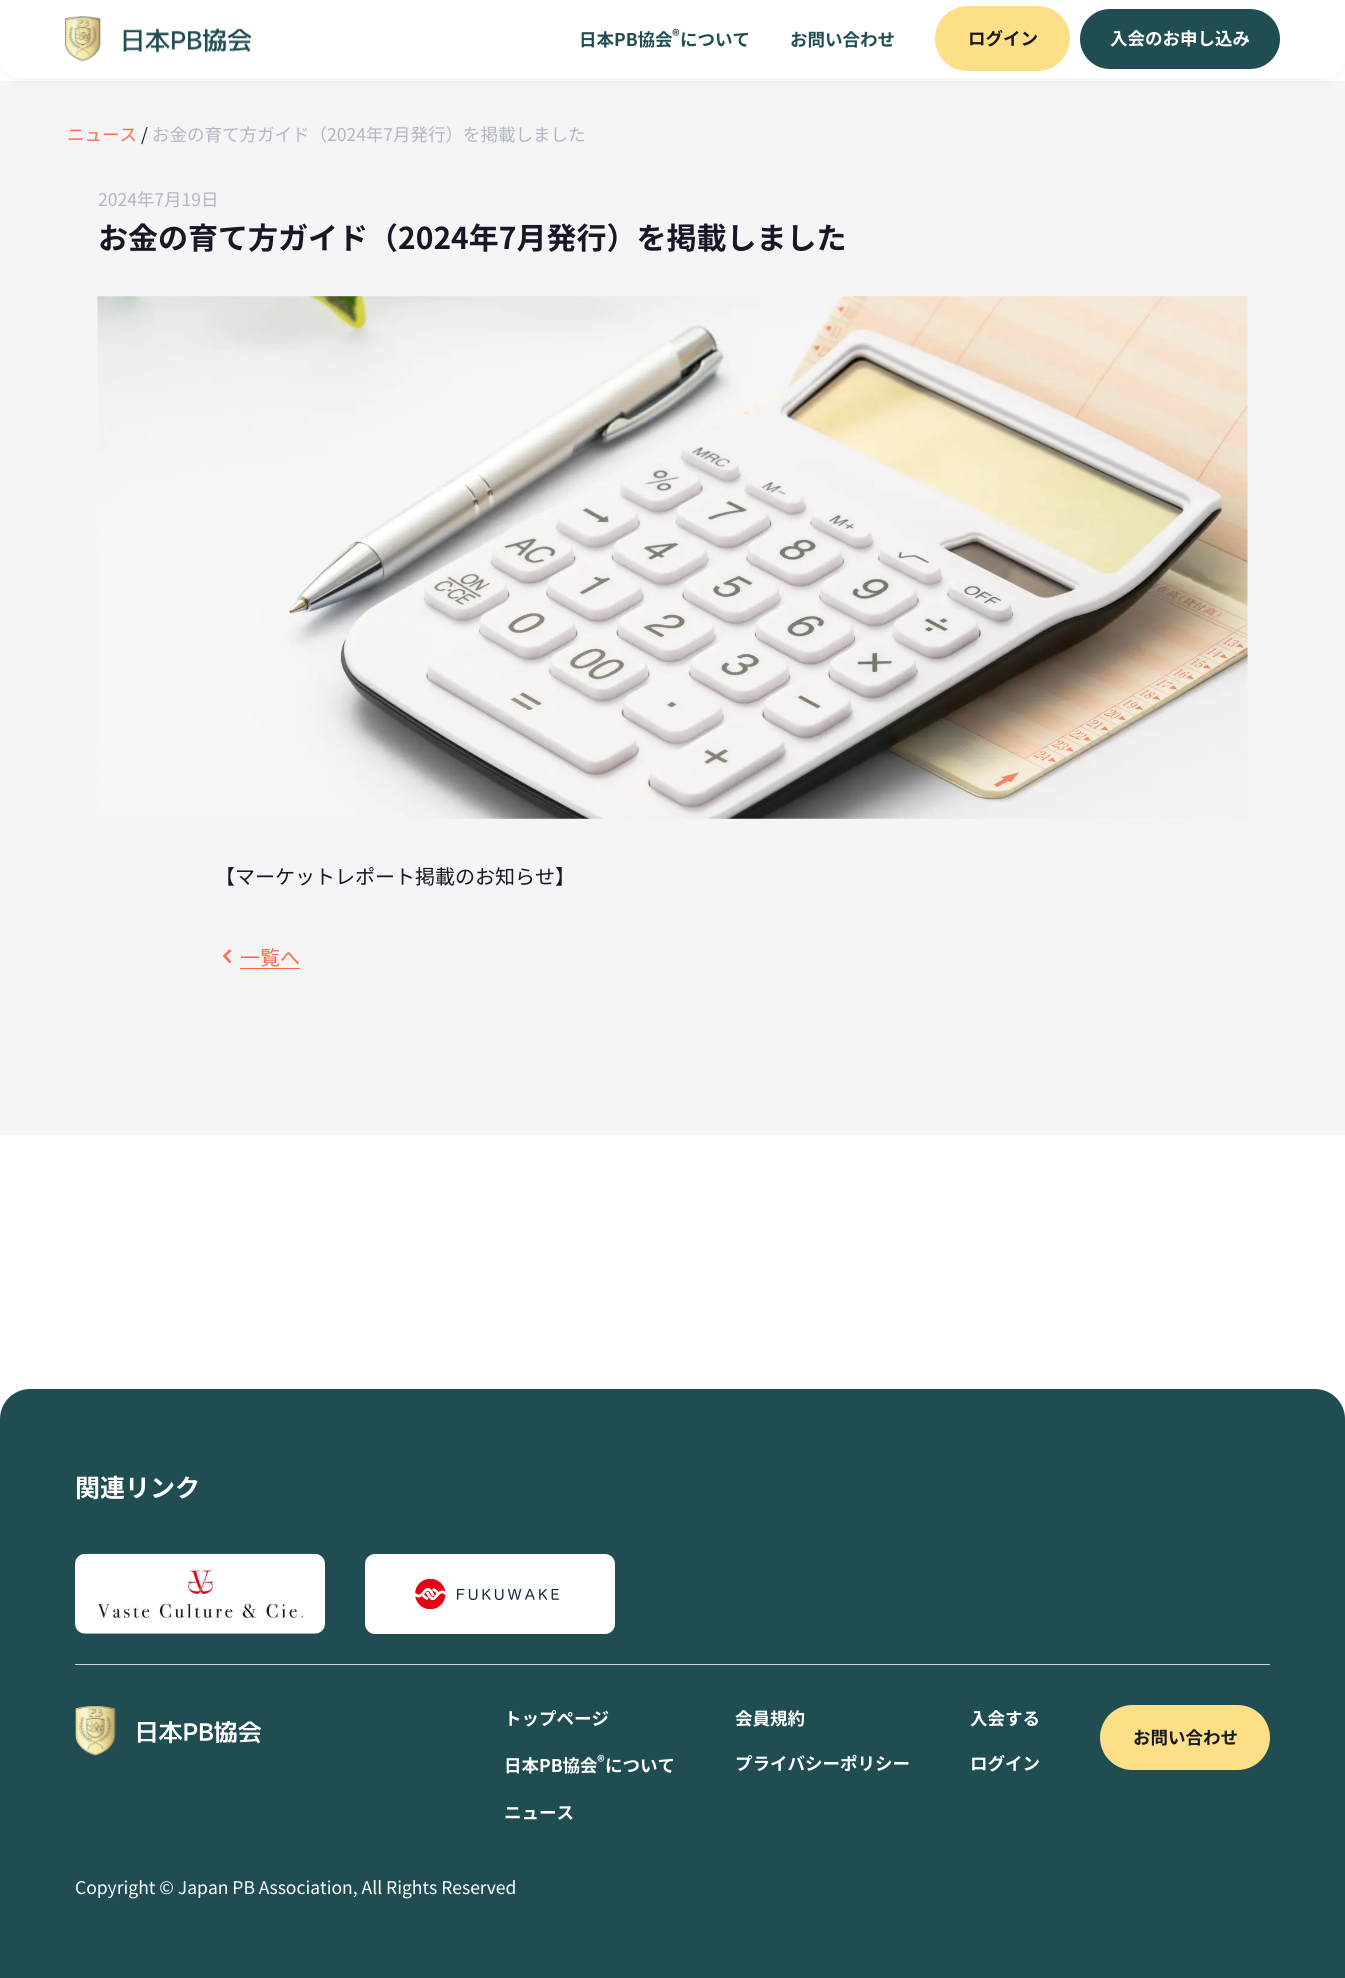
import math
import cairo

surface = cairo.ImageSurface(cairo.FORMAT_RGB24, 1345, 1978)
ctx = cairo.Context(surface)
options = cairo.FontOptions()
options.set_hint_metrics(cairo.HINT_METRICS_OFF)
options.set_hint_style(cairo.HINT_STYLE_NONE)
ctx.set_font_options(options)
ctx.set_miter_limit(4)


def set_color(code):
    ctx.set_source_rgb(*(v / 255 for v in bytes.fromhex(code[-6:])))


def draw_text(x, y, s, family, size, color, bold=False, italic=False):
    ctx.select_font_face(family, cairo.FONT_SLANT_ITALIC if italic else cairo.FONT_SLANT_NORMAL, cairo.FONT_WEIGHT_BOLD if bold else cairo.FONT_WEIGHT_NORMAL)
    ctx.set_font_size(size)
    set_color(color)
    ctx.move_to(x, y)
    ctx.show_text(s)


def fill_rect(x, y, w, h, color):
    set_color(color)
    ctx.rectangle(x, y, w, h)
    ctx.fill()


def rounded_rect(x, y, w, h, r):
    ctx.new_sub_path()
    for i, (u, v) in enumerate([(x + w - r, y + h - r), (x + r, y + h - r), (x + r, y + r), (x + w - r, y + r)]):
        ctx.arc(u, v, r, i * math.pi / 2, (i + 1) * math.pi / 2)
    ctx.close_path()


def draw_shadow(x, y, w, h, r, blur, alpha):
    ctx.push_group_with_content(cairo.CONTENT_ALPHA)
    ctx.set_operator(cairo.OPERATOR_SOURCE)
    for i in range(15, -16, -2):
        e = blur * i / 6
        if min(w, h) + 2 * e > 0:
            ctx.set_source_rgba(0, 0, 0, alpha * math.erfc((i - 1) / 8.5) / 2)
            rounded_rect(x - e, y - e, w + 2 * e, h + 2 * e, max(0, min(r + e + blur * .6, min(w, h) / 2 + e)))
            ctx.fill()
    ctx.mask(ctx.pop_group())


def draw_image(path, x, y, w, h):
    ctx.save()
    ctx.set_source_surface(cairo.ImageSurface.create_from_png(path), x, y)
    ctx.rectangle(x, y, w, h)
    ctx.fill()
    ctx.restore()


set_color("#ffffff")
ctx.paint()
fill_rect(0, 81, 1345, 1054, "#f5f4f7")
set_color("#7090b2")
draw_shadow(1, 6, 1343, 75, 19, 4, 0.1)
set_color("#ffffff")
ctx.new_path()
ctx.move_to(0, 0)
ctx.line_to(1345, 0)
ctx.line_to(1345, 58)
ctx.curve_to(1345, 69, 1336, 78, 1325, 78)
ctx.line_to(20, 78)
ctx.curve_to(9, 78, 0, 69, 0, 58)
ctx.close_path()
ctx.fill()
draw_image("assets/img1.png", 65, 16, 187, 46)
draw_text(579, 46, "日本PB協会", "Noto Sans JP", 17.5, "#204d51", bold=True)
draw_text(672, 41, "®", "Noto Sans JP", 15, "#204d51", bold=True)
draw_text(680, 46, "について", "Noto Sans JP", 17.5, "#204d51", bold=True)
draw_text(790, 46, "お問い合わせ", "Noto Sans JP", 17.5, "#204d51", bold=True)
set_color("#fddf87")
rounded_rect(936.5, 7.5, 132, 62, 31)
ctx.fill_preserve()
ctx.set_line_width(3)
ctx.stroke()
draw_text(968, 45, "ログイン", "Noto Sans JP", 17.5, "#171725", bold=True)
set_color("#204d51")
rounded_rect(1080, 9, 200, 60, 30)
ctx.fill()
draw_text(1110, 45, "入会のお申し込み", "Noto Sans JP", 17.5, "#ffffff", bold=True)
draw_text(67, 141, "ニュース", "Noto Sans JP", 17.5, "#ff6b48")
draw_text(141, 141, "/", "Noto Sans JP", 17.5, "#171725")
draw_text(152, 141, "お金の育て方ガイド（2024年7月発行）を掲載しました", "Noto Sans JP", 17.5, "#b1b7c2")
draw_text(98, 206, "2024年7月19日", "Noto Sans JP", 17.5, "#b1b7c2")
draw_text(98, 249, "お金の育て方ガイド（2024年7月発行）を掲載しました", "Noto Sans JP", 30, "#171725", bold=True)
draw_image("assets/img2.png", 97, 296, 1151, 523)
draw_text(215, 884, "【マーケットレポート掲載のお知らせ】", "Noto Sans JP", 20, "#171725")
ctx.new_path()
ctx.move_to(230.5, 950)
ctx.line_to(224.5, 956)
ctx.line_to(230.5, 962.5)
set_color("#ff6b48")
ctx.set_line_width(2.5)
ctx.stroke()
draw_text(240, 965, "一覧へ", "Noto Sans JP", 20, "#ff6b48")
fill_rect(240, 968, 60, 1, "#ff6b48")
set_color("#204d51")
ctx.new_path()
ctx.move_to(30, 1389)
ctx.line_to(1315, 1389)
ctx.curve_to(1331.5, 1389, 1345, 1402.5, 1345, 1419)
ctx.line_to(1345, 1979)
ctx.line_to(0, 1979)
ctx.line_to(0, 1419)
ctx.curve_to(0, 1402.5, 13.5, 1389, 30, 1389)
ctx.close_path()
ctx.fill()
draw_text(75, 1497, "関連リンク", "Noto Sans JP", 25, "#ffffff", bold=True)
draw_image("assets/img3.png", 75, 1553, 250, 81)
rounded_rect(365, 1554, 250, 80, 10)
ctx.fill()
draw_image("assets/img4.png", 415, 1579, 144, 30)
fill_rect(75, 1664, 1195, 1, "#cfd5e0")
draw_image("assets/img5.png", 75, 1705, 186, 51)
draw_text(504, 1725, "トップページ", "Noto Sans JP", 17.5, "#ffffff", bold=True)
draw_text(504, 1772, "日本PB協会", "Noto Sans JP", 17.5, "#ffffff", bold=True)
draw_text(597, 1767, "®", "Noto Sans JP", 15, "#ffffff", bold=True)
draw_text(605, 1772, "について", "Noto Sans JP", 17.5, "#ffffff", bold=True)
draw_text(504, 1819, "ニュース", "Noto Sans JP", 17.5, "#ffffff", bold=True)
draw_text(735, 1725, "会員規約", "Noto Sans JP", 17.5, "#ffffff", bold=True)
draw_text(735, 1770, "プライバシーポリシー", "Noto Sans JP", 17.5, "#ffffff", bold=True)
draw_text(970, 1725, "入会する", "Noto Sans JP", 17.5, "#ffffff", bold=True)
draw_text(970, 1770, "ログイン", "Noto Sans JP", 17.5, "#ffffff", bold=True)
set_color("#fddf87")
rounded_rect(1101.5, 1706.5, 167, 62, 31)
ctx.fill_preserve()
ctx.set_line_width(3)
ctx.stroke()
draw_text(1133, 1744, "お問い合わせ", "Noto Sans JP", 17.5, "#171725", bold=True)
draw_text(75, 1894, "Copyright © Japan PB Association, All Rights Reserved", "Noto Sans JP", 17.5, "#ffffff")
surface.write_to_png("output.png")
